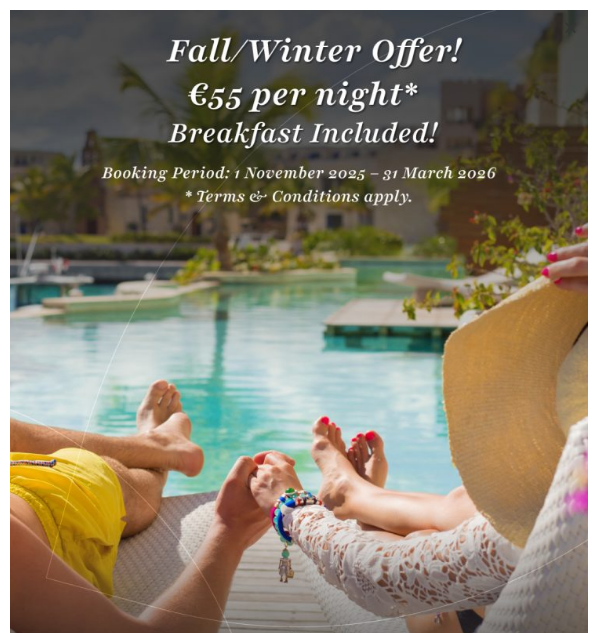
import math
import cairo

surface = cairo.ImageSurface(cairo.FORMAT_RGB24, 598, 633)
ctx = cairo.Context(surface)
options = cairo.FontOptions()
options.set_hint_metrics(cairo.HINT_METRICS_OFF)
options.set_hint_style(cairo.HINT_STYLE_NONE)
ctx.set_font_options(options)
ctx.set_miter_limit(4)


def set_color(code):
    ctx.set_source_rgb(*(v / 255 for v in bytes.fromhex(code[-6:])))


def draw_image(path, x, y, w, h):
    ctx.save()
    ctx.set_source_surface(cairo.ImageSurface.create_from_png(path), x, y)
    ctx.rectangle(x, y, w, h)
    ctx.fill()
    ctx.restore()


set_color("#ffffff")
ctx.paint()
draw_image("assets/img1.png", 10, 10, 578, 623)
draw_image("assets/img2.png", 565, 22, 11, 11)
surface.write_to_png("output.png")
